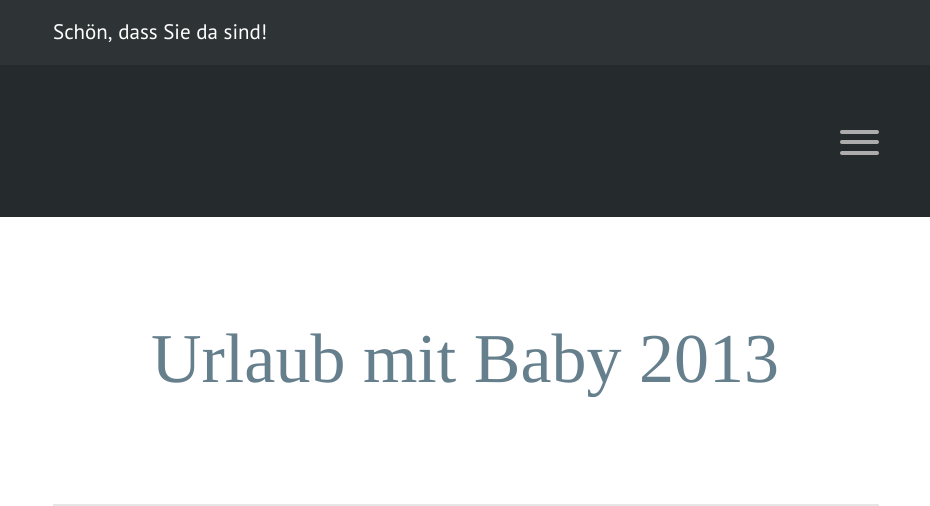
import math
import cairo

surface = cairo.ImageSurface(cairo.FORMAT_RGB24, 930, 506)
ctx = cairo.Context(surface)
options = cairo.FontOptions()
options.set_hint_metrics(cairo.HINT_METRICS_OFF)
options.set_hint_style(cairo.HINT_STYLE_NONE)
ctx.set_font_options(options)
ctx.set_miter_limit(4)


def set_color(code):
    ctx.set_source_rgb(*(v / 255 for v in bytes.fromhex(code[-6:])))


def draw_text(x, y, s, family, size, color, bold=False, italic=False):
    ctx.select_font_face(family, cairo.FONT_SLANT_ITALIC if italic else cairo.FONT_SLANT_NORMAL, cairo.FONT_WEIGHT_BOLD if bold else cairo.FONT_WEIGHT_NORMAL)
    ctx.set_font_size(size)
    set_color(color)
    ctx.move_to(x, y)
    ctx.show_text(s)


def fill_rect(x, y, w, h, color):
    set_color(color)
    ctx.rectangle(x, y, w, h)
    ctx.fill()


def rounded_rect(x, y, w, h, r):
    ctx.new_sub_path()
    for i, (u, v) in enumerate([(x + w - r, y + h - r), (x + r, y + h - r), (x + r, y + r), (x + w - r, y + r)]):
        ctx.arc(u, v, r, i * math.pi / 2, (i + 1) * math.pi / 2)
    ctx.close_path()


set_color("#ffffff")
ctx.paint()
fill_rect(0, 65, 930, 152, "#252b2d")
fill_rect(0, 0, 930, 65, "#2e3335")
draw_text(53, 39, "Schön, dass Sie da sind!", "PT Sans", 21, "#ffffff")
set_color("#acacac")
rounded_rect(840, 130, 39, 4, 2)
ctx.fill()
rounded_rect(840, 140, 39, 4, 2)
ctx.fill()
rounded_rect(840, 151, 39, 4, 2)
ctx.fill()
fill_rect(53, 504, 826, 2, "#e6e6e6")
draw_text(151, 382, "Urlaub mit Baby 2013", "Liberation Serif", 70, "#667f8c")
surface.write_to_png("output.png")
